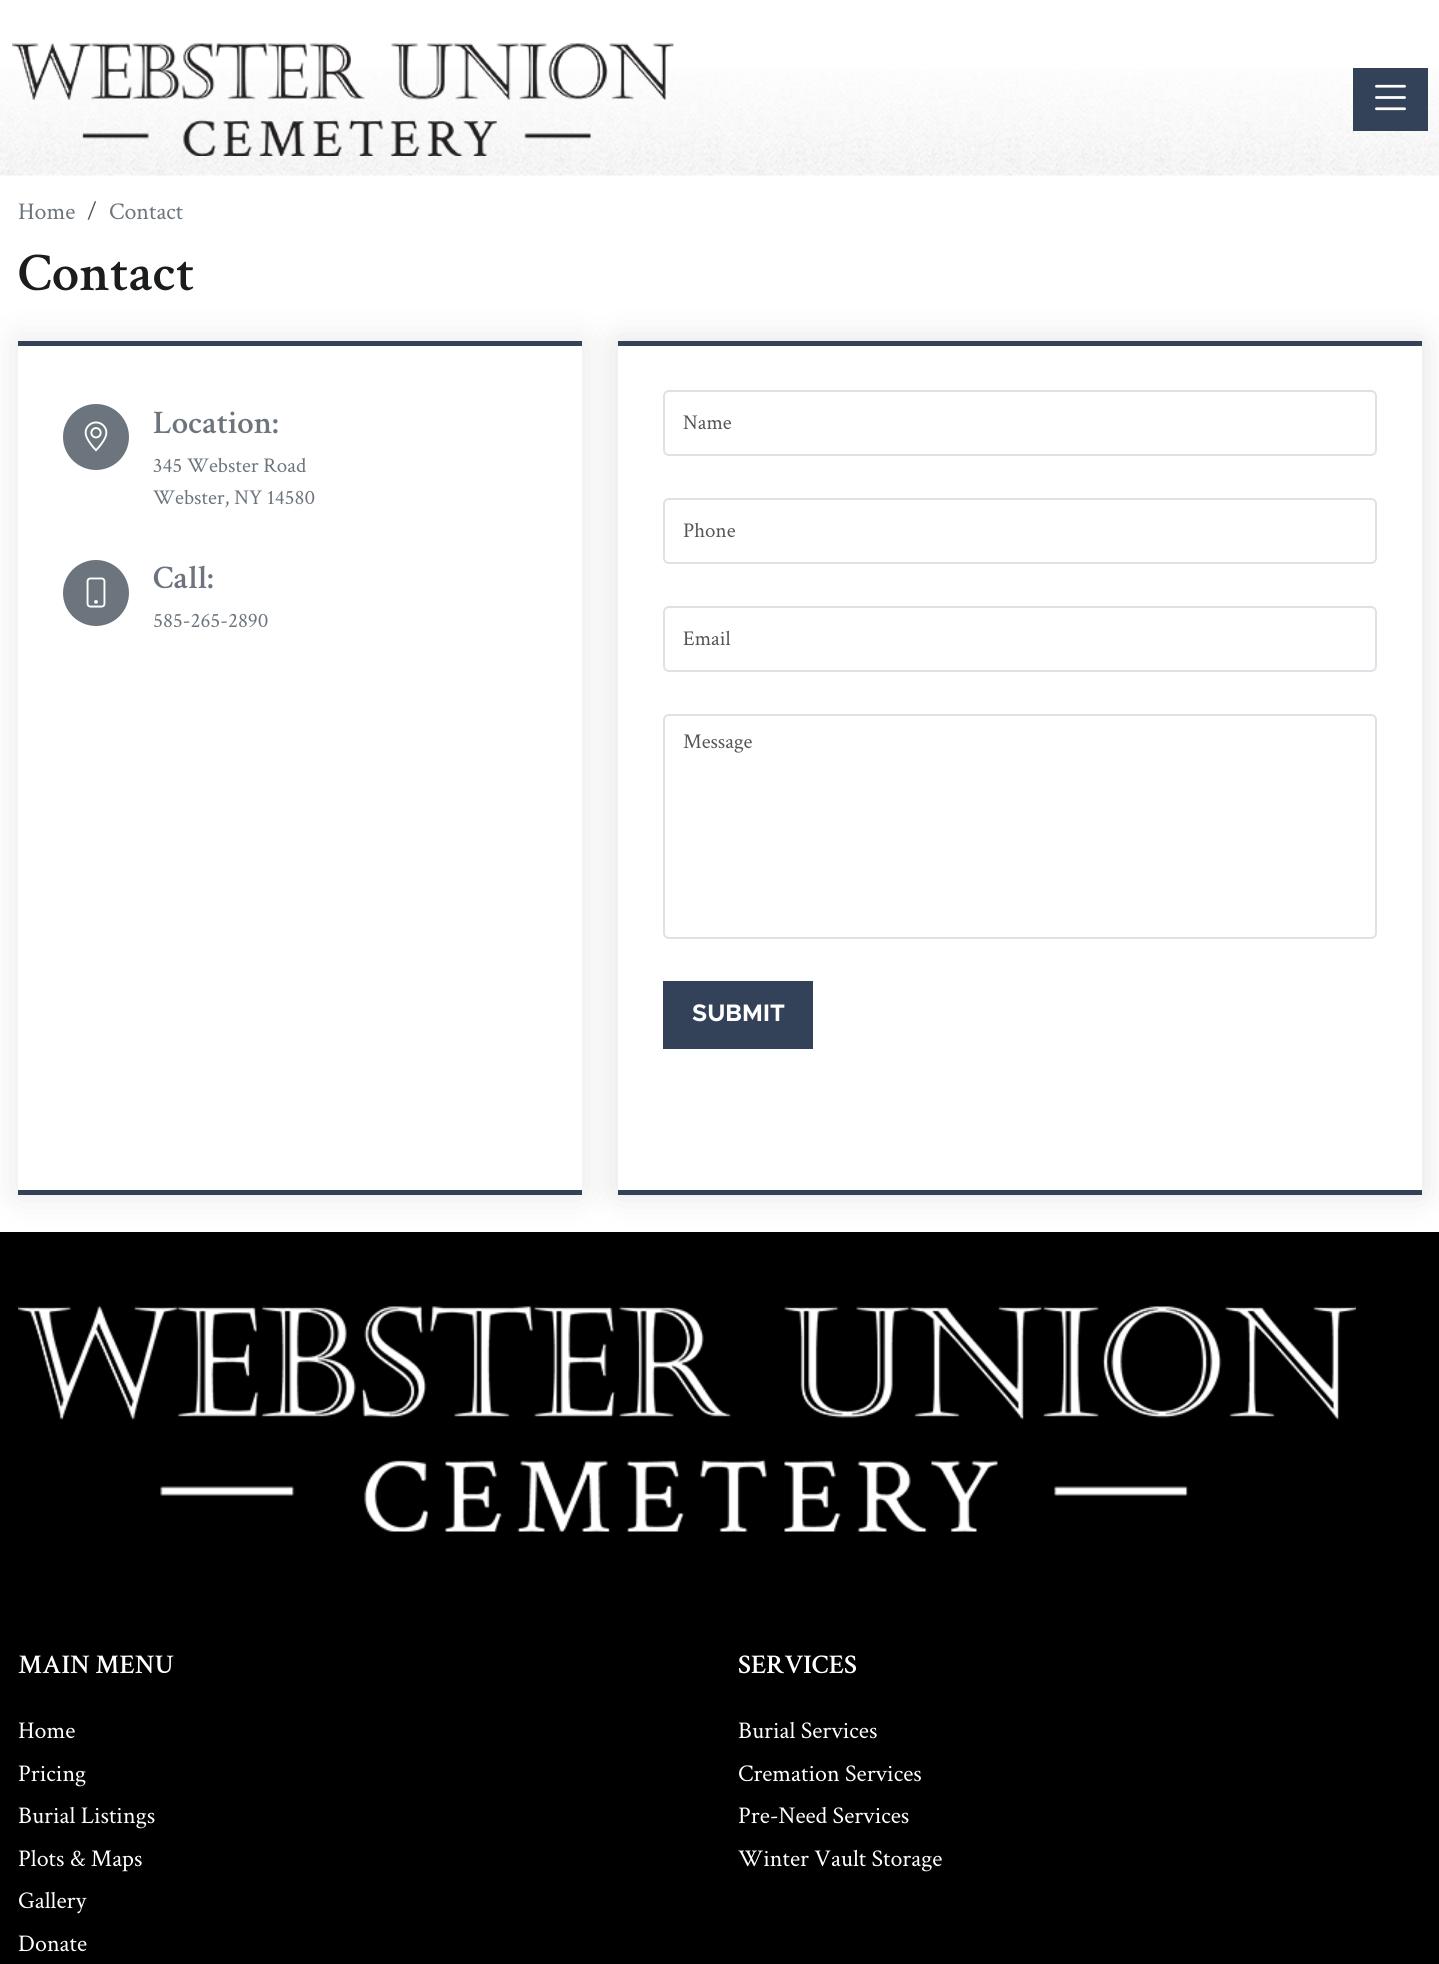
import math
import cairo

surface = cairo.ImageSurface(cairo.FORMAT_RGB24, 1439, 1964)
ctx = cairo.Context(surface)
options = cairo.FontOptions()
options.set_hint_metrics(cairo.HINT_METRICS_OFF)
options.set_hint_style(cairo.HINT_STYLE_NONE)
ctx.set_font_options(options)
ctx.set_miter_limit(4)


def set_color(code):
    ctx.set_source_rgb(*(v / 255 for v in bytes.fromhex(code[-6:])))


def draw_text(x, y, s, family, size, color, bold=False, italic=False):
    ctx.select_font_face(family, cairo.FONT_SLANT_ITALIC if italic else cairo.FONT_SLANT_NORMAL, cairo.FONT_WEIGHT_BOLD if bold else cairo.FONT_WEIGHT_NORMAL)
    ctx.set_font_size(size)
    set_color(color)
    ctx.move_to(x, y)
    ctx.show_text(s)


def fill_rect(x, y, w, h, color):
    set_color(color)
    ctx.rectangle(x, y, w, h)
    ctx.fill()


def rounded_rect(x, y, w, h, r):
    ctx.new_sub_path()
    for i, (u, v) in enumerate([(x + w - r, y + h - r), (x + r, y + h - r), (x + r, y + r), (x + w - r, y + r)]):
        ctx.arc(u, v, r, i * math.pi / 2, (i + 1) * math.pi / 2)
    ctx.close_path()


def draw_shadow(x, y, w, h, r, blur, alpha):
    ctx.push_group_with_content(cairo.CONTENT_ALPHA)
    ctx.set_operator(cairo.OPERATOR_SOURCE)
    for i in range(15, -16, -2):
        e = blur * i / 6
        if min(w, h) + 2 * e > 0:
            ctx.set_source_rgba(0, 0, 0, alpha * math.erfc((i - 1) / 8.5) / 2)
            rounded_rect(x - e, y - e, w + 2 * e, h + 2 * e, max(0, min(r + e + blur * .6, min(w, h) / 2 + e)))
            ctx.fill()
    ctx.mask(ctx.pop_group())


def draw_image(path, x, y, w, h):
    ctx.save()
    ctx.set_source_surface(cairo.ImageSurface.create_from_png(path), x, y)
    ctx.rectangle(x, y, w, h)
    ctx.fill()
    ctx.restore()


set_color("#ffffff")
ctx.paint()
draw_image("assets/img1.png", 0, 69, 1439, 107)
draw_image("assets/img2.png", 12, 43, 662, 113)
fill_rect(1353, 68, 75, 63, "#334259")
draw_image("assets/img3.png", 1375, 84, 31, 27)
draw_text(18, 219, "Home", "Crimson Text", 24, "#6c757d")
draw_text(87, 219, "/", "Crimson Text", 24, "#545555")
draw_text(109, 219, "Contact", "Crimson Text", 24, "#6c757d")
draw_text(18, 290, "Contact", "Crimson Text SemiBold", 54.5, "#1b1c1c")
fill_rect(0, 1232, 1439, 732, "#000000")
ctx.save()
ctx.set_fill_rule(cairo.FILL_RULE_EVEN_ODD)
ctx.new_path()
ctx.move_to(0, 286)
ctx.line_to(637, 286)
ctx.line_to(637, 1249)
ctx.line_to(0, 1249)
ctx.close_path()
ctx.move_to(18, 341)
ctx.line_to(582, 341)
ctx.line_to(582, 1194)
ctx.line_to(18, 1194)
ctx.close_path()
ctx.clip()
set_color("#000000")
draw_shadow(18, 341, 564, 853, 0, 18, 0.1)
ctx.restore()
fill_rect(18, 341, 564, 5, "#334259")
fill_rect(18, 1190, 564, 5, "#334259")
set_color("#6c757d")
ctx.arc(96, 437, 33, 0, 2 * math.pi)
ctx.fill()
draw_image("assets/img4.png", 84, 421, 24, 31)
draw_text(153, 433, "Location:", "Crimson Text SemiBold", 33, "#6c757d")
draw_text(153, 472, "345 Webster Road", "Crimson Text", 21, "#6c757d")
draw_text(153, 504, "Webster, NY 14580", "Crimson Text", 21, "#6c757d")
ctx.new_path()
ctx.arc(96, 593, 33, 0, 2 * math.pi)
ctx.fill()
draw_image("assets/img5.png", 86, 577, 20, 31)
draw_text(153, 588, "Call:", "Crimson Text SemiBold", 33, "#6c757d")
draw_text(153, 627, "585-265-2890", "Crimson Text", 21, "#6c757d")
ctx.save()
ctx.set_fill_rule(cairo.FILL_RULE_EVEN_ODD)
ctx.new_path()
ctx.move_to(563, 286)
ctx.line_to(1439, 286)
ctx.line_to(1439, 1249)
ctx.line_to(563, 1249)
ctx.close_path()
ctx.move_to(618, 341)
ctx.line_to(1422, 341)
ctx.line_to(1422, 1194)
ctx.line_to(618, 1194)
ctx.close_path()
ctx.clip()
set_color("#000000")
draw_shadow(618, 341, 804, 853, 0, 18, 0.12)
ctx.restore()
fill_rect(618, 341, 804, 5, "#334259")
fill_rect(618, 1190, 804, 5, "#334259")
rounded_rect(664, 391, 712, 64, 5)
set_color("#dee2e6")
ctx.stroke()
draw_text(683, 429, "Name", "Crimson Text", 21, "#545555")
rounded_rect(664, 499, 712, 64, 5)
set_color("#dee2e6")
ctx.stroke()
draw_text(683, 537, "Phone", "Crimson Text", 21, "#545555")
rounded_rect(664, 607, 712, 64, 5)
set_color("#dee2e6")
ctx.stroke()
draw_text(683, 645, "Email", "Crimson Text", 21, "#545555")
rounded_rect(664, 715, 712, 223, 5)
set_color("#dee2e6")
ctx.stroke()
draw_text(683, 748, "Message", "Crimson Text", 21, "#545555")
fill_rect(663, 981, 150, 68, "#334259")
draw_text(692, 1021, "SUBMIT", "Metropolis", 24, "#ffffff", bold=True)
draw_image("assets/img6.png", 18, 1306, 1338, 226)
draw_text(18, 1673, "MAIN MENU", "Crimson Text SemiBold", 27, "#ffffff")
draw_text(18, 1738, "Home", "Crimson Text", 24, "#ffffff")
draw_text(18, 1781, "Pricing", "Crimson Text", 24, "#ffffff")
draw_text(18, 1823, "Burial Listings", "Crimson Text", 24, "#ffffff")
draw_text(18, 1866, "Plots & Maps", "Crimson Text", 24, "#ffffff")
draw_text(18, 1908, "Gallery", "Crimson Text", 24, "#ffffff")
draw_text(18, 1951, "Donate", "Crimson Text", 24, "#ffffff")
draw_text(738, 1673, "SERVICES", "Crimson Text SemiBold", 27, "#ffffff")
draw_text(738, 1738, "Burial Services", "Crimson Text", 24, "#ffffff")
draw_text(738, 1781, "Cremation Services", "Crimson Text", 24, "#ffffff")
draw_text(738, 1823, "Pre-Need Services", "Crimson Text", 24, "#ffffff")
draw_text(738, 1866, "Winter Vault Storage", "Crimson Text", 24, "#ffffff")
surface.write_to_png("output.png")
